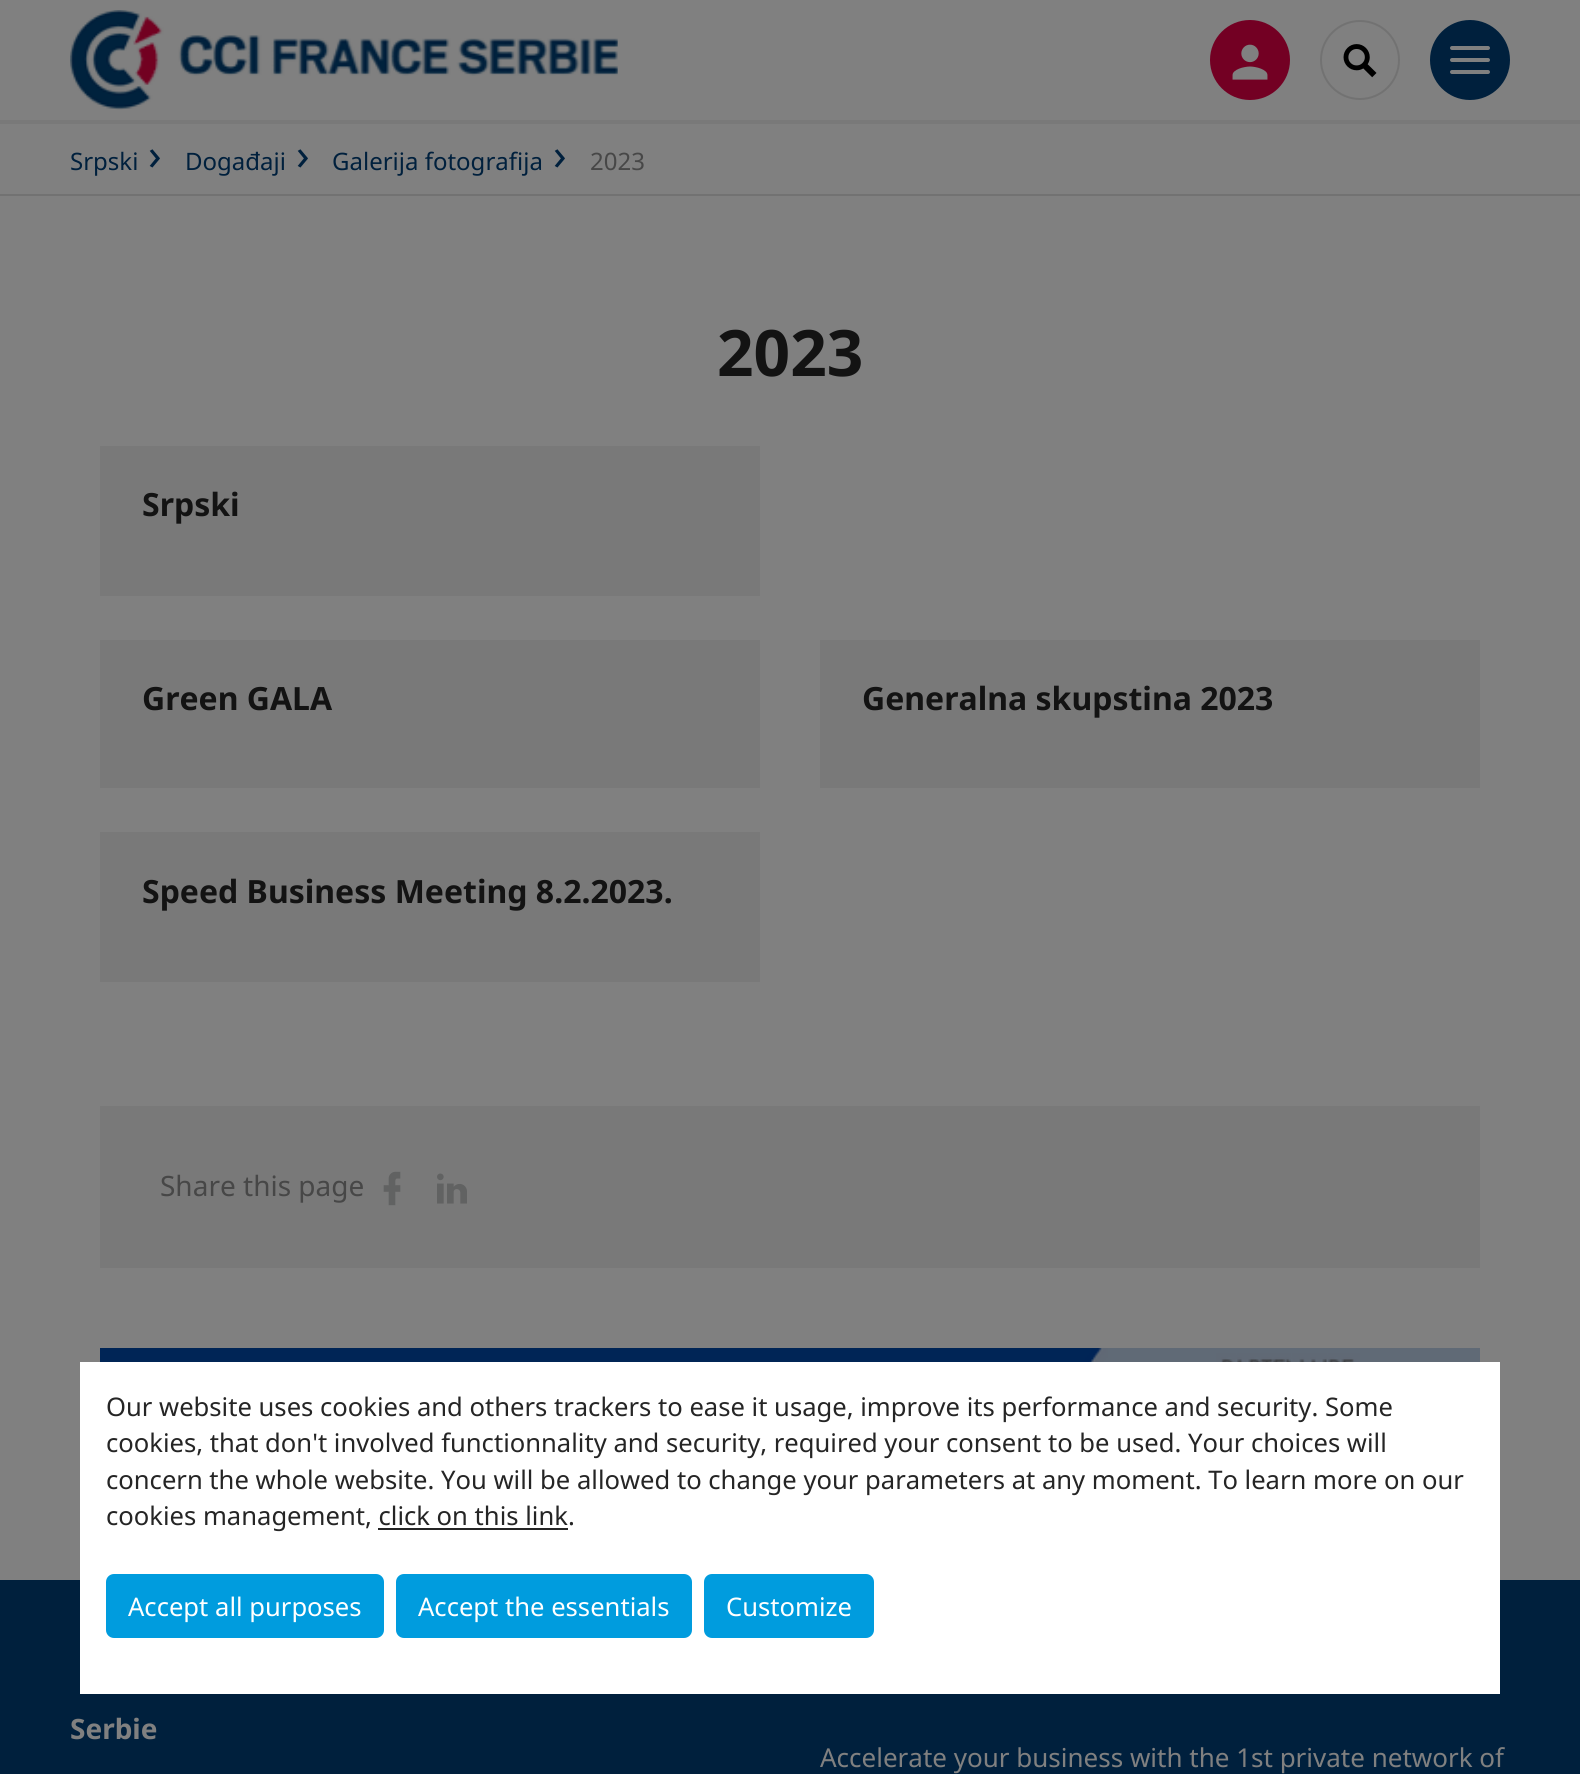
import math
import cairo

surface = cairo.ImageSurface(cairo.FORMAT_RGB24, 1580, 1774)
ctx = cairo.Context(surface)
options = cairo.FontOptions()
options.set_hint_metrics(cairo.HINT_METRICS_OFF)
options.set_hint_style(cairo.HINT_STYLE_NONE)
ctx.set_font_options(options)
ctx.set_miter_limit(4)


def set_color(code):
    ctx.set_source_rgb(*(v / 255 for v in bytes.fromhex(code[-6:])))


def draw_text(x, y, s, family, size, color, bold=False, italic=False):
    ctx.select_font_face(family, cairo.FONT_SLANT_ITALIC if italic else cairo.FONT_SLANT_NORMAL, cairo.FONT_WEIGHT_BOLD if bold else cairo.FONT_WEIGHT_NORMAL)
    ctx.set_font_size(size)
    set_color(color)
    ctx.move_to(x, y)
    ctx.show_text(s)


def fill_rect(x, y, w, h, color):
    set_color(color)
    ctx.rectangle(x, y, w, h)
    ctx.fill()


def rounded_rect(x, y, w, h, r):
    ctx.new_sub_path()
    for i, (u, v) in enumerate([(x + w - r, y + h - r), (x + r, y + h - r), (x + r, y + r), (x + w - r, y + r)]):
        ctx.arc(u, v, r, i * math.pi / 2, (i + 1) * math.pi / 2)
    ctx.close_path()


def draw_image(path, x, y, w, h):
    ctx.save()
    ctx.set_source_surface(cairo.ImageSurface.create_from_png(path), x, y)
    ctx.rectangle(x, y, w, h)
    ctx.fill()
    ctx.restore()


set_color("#808080")
ctx.paint()
fill_rect(0, 120, 1580, 4, "#797979")
draw_image("assets/img1.png", 70, 10, 548, 100)
set_color("#730023")
ctx.arc(1250, 60, 40, 0, 2 * math.pi)
ctx.fill()
draw_image("assets/img2.png", 1232, 44, 36, 36)
ctx.arc(1360, 60, 39, 0, 2 * math.pi)
set_color("#727272")
ctx.stroke()
draw_image("assets/img3.png", 1343, 44, 34, 34)
set_color("#00203d")
ctx.arc(1470, 60, 39, 0, 2 * math.pi)
ctx.fill_preserve()
ctx.stroke()
set_color("#808080")
rounded_rect(1450, 46, 40, 4, 2)
ctx.fill()
rounded_rect(1450, 58, 40, 4, 2)
ctx.fill()
rounded_rect(1450, 70, 40, 4, 2)
ctx.fill()
fill_rect(0, 194, 1580, 2, "#727272")
draw_text(70, 170, "Srpski", "Noto Sans", 24, "#00203d")
draw_text(148, 170, "›", "Noto Sans", 44, "#00203d")
draw_text(185, 170, "Događaji", "Noto Sans", 24, "#00203d")
draw_text(296, 170, "›", "Noto Sans", 44, "#00203d")
draw_text(332, 170, "Galerija fotografija", "Noto Sans", 24, "#00203d")
draw_text(553, 170, "›", "Noto Sans", 44, "#00203d")
draw_text(590, 170, "2023", "Noto Sans", 24, "#474747")
draw_text(717, 376, "2023", "Noto Sans", 64, "#131313", bold=True)
fill_rect(100, 446, 660, 150, "#797979")
draw_text(142, 516, "Srpski", "Noto Sans", 32, "#131313", bold=True)
fill_rect(100, 640, 660, 148, "#797979")
draw_text(142, 710, "Green GALA", "Noto Sans", 32, "#131313", bold=True)
fill_rect(820, 640, 660, 148, "#797979")
draw_text(862, 710, "Generalna skupstina 2023", "Noto Sans", 32, "#131313", bold=True)
fill_rect(100, 832, 660, 150, "#797979")
draw_text(142, 903, "Speed Business Meeting 8.2.2023.", "Noto Sans", 32, "#131313", bold=True)
fill_rect(100, 1106, 1380, 162, "#797979")
draw_text(160, 1196, "Share this page", "Noto Sans", 28, "#474747")
draw_image("assets/img4.png", 383, 1171, 18, 35)
draw_image("assets/img5.png", 437, 1173, 30, 31)
draw_image("assets/img6.png", 100, 1348, 1380, 14)
fill_rect(0, 1580, 1580, 194, "#00203d")
fill_rect(80, 1362, 1420, 332, "#ffffff")
draw_text(106, 1416, "Our website uses cookies and others trackers to ease it usage, improve its performance and security. Some", "Noto Sans", 25.6, "#252525")
draw_text(106, 1452, "cookies, that don't involved functionnality and security, required your consent to be used. Your choices will", "Noto Sans", 25.6, "#252525")
draw_text(106, 1489, "concern the whole website. You will be allowed to change your parameters at any moment. To learn more on our", "Noto Sans", 25.6, "#252525")
draw_text(106, 1525, "cookies management, click on this link.", "Noto Sans", 25.6, "#252525")
fill_rect(378, 1528, 190, 2, "#252525")
set_color("#009cde")
rounded_rect(106, 1574, 278, 64, 8)
ctx.fill()
draw_text(128, 1616, "Accept all purposes", "Noto Sans", 25.6, "#ffffff")
set_color("#009cde")
rounded_rect(396, 1574, 296, 64, 8)
ctx.fill()
draw_text(418, 1616, "Accept the essentials", "Noto Sans", 25.6, "#ffffff")
set_color("#009cde")
rounded_rect(704, 1574, 170, 64, 8)
ctx.fill()
draw_text(726, 1616, "Customize", "Noto Sans", 25.6, "#ffffff")
draw_text(70, 1739, "Serbie", "Noto Sans", 28, "#808080", bold=True)
draw_text(820, 1767, "Accelerate your business with the 1st private network of", "Noto Sans", 26, "#808080")
surface.write_to_png("output.png")
